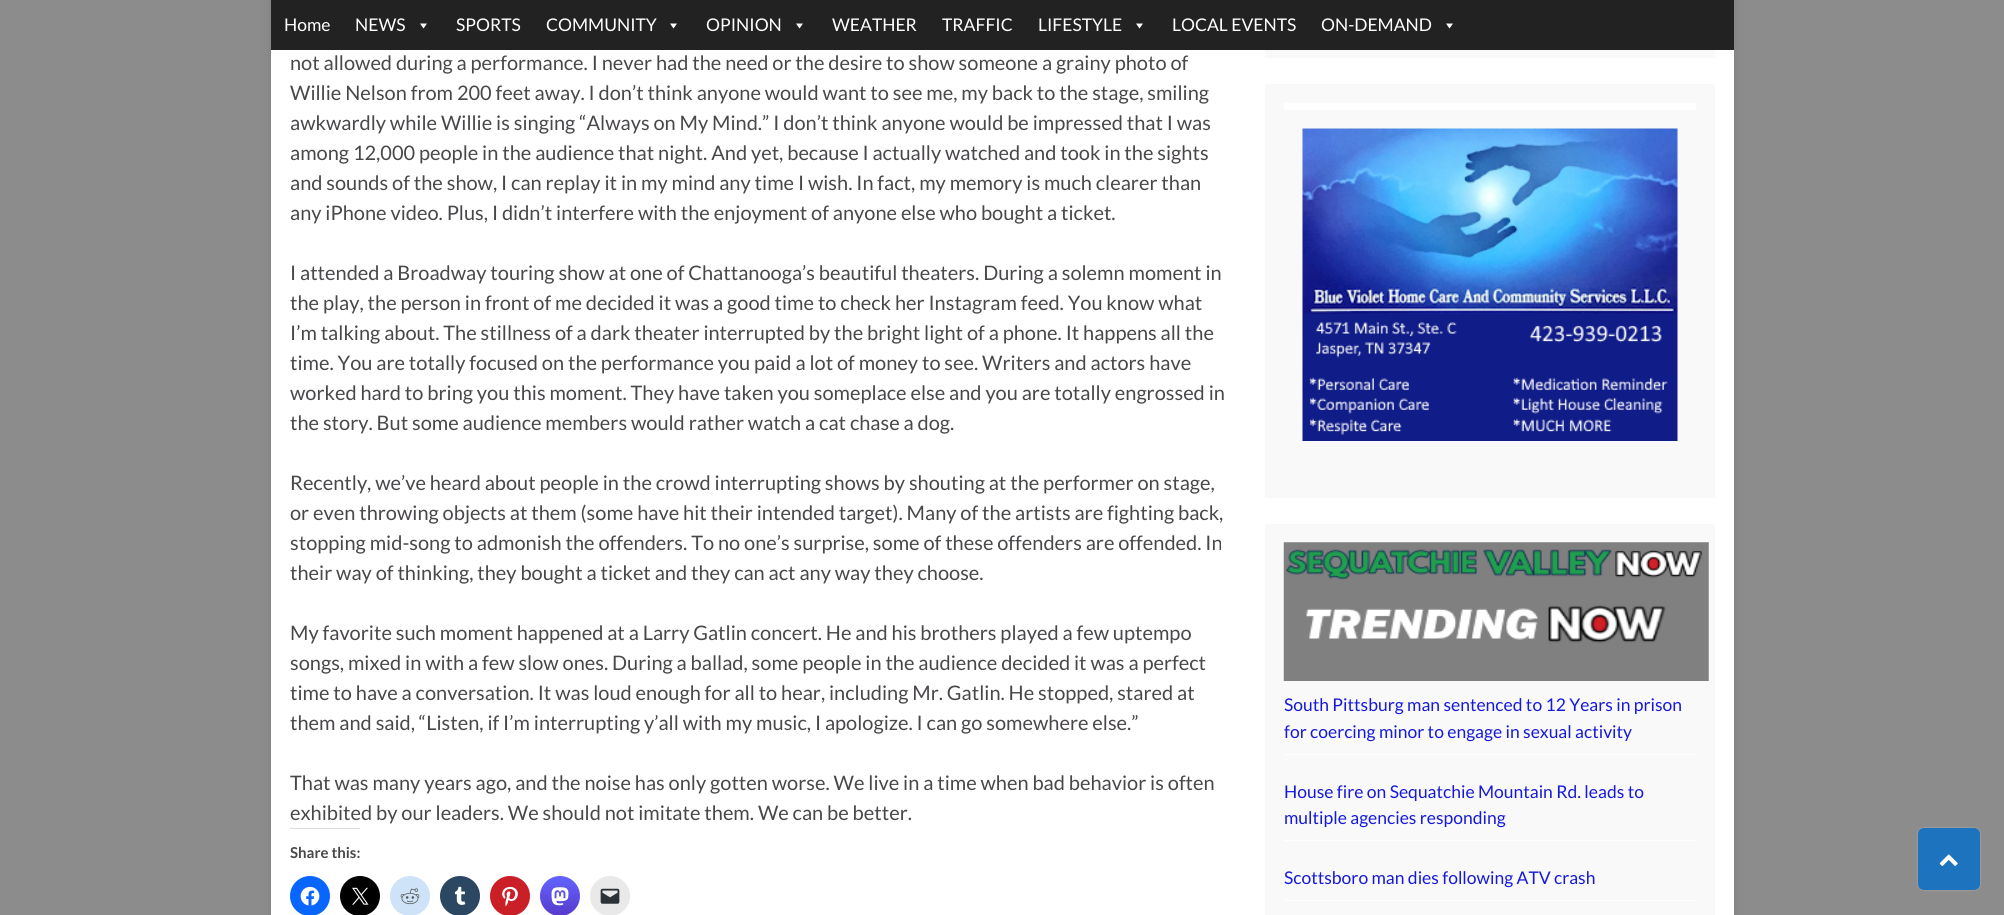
import math
import cairo

surface = cairo.ImageSurface(cairo.FORMAT_RGB24, 2004, 915)
ctx = cairo.Context(surface)
options = cairo.FontOptions()
options.set_hint_metrics(cairo.HINT_METRICS_OFF)
options.set_hint_style(cairo.HINT_STYLE_NONE)
ctx.set_font_options(options)
ctx.set_miter_limit(4)


def set_color(code):
    ctx.set_source_rgb(*(v / 255 for v in bytes.fromhex(code[-6:])))


def draw_text(x, y, s, family, size, color, bold=False, italic=False):
    ctx.select_font_face(family, cairo.FONT_SLANT_ITALIC if italic else cairo.FONT_SLANT_NORMAL, cairo.FONT_WEIGHT_BOLD if bold else cairo.FONT_WEIGHT_NORMAL)
    ctx.set_font_size(size)
    set_color(color)
    ctx.move_to(x, y)
    ctx.show_text(s)


def fill_rect(x, y, w, h, color):
    set_color(color)
    ctx.rectangle(x, y, w, h)
    ctx.fill()


def rounded_rect(x, y, w, h, r):
    ctx.new_sub_path()
    for i, (u, v) in enumerate([(x + w - r, y + h - r), (x + r, y + h - r), (x + r, y + r), (x + w - r, y + r)]):
        ctx.arc(u, v, r, i * math.pi / 2, (i + 1) * math.pi / 2)
    ctx.close_path()


def draw_shadow(x, y, w, h, r, blur, alpha):
    ctx.push_group_with_content(cairo.CONTENT_ALPHA)
    ctx.set_operator(cairo.OPERATOR_SOURCE)
    for i in range(15, -16, -2):
        e = blur * i / 6
        if min(w, h) + 2 * e > 0:
            ctx.set_source_rgba(0, 0, 0, alpha * math.erfc((i - 1) / 8.5) / 2)
            rounded_rect(x - e, y - e, w + 2 * e, h + 2 * e, max(0, min(r + e + blur * .6, min(w, h) / 2 + e)))
            ctx.fill()
    ctx.mask(ctx.pop_group())


def draw_image(path, x, y, w, h):
    ctx.save()
    ctx.set_source_surface(cairo.ImageSurface.create_from_png(path), x, y)
    ctx.rectangle(x, y, w, h)
    ctx.fill()
    ctx.restore()


set_color("#8c8c8c")
ctx.paint()
set_color("#000000")
draw_shadow(271, -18, 1463, 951, 0, 6, 0.1)
fill_rect(271, 0, 1463, 50, "#222222")
draw_text(284, 31, "Home", "Lato", 17.5, "#ffffff")
draw_text(355, 31, "NEWS", "Lato", 17.5, "#ffffff")
ctx.new_path()
ctx.move_to(427, 23.5)
ctx.line_to(423.5, 28.5)
ctx.line_to(420, 23.5)
ctx.close_path()
ctx.fill()
draw_text(456, 31, "SPORTS", "Lato", 17.5, "#ffffff")
draw_text(546, 31, "COMMUNITY", "Lato", 17.5, "#ffffff")
ctx.new_path()
ctx.move_to(677, 23.5)
ctx.line_to(673.5, 28.5)
ctx.line_to(670, 23.5)
ctx.close_path()
ctx.fill()
draw_text(706, 31, "OPINION", "Lato", 17.5, "#ffffff")
ctx.new_path()
ctx.move_to(803, 23.5)
ctx.line_to(799.5, 28.5)
ctx.line_to(796, 23.5)
ctx.close_path()
ctx.fill()
draw_text(832, 31, "WEATHER", "Lato", 17.5, "#ffffff")
draw_text(942, 31, "TRAFFIC", "Lato", 17.5, "#ffffff")
draw_text(1038, 31, "LIFESTYLE", "Lato", 17.5, "#ffffff")
ctx.new_path()
ctx.move_to(1143, 23.5)
ctx.line_to(1139.5, 28.5)
ctx.line_to(1136, 23.5)
ctx.close_path()
ctx.fill()
draw_text(1172, 31, "LOCAL EVENTS", "Lato", 17.5, "#ffffff")
draw_text(1321, 31, "ON-DEMAND", "Lato", 17.5, "#ffffff")
ctx.new_path()
ctx.move_to(1453, 23.5)
ctx.line_to(1449.5, 28.5)
ctx.line_to(1446, 23.5)
ctx.close_path()
ctx.fill()
fill_rect(271, 50, 1463, 865, "#ffffff")
draw_text(290, 70, "not allowed during a performance. I never had the need or the desire to show someone a grainy photo of", "Lato", 20, "#4a474b")
draw_text(290, 100, "Willie Nelson from 200 feet away. I don’t think anyone would want to see me, my back to the stage, smiling", "Lato", 20, "#4a474b")
draw_text(290, 130, "awkwardly while Willie is singing “Always on My Mind.” I don’t think anyone would be impressed that I was", "Lato", 20, "#4a474b")
draw_text(290, 160, "among 12,000 people in the audience that night. And yet, because I actually watched and took in the sights", "Lato", 20, "#4a474b")
draw_text(290, 190, "and sounds of the show, I can replay it in my mind any time I wish. In fact, my memory is much clearer than", "Lato", 20, "#4a474b")
draw_text(290, 220, "any iPhone video. Plus, I didn’t interfere with the enjoyment of anyone else who bought a ticket.", "Lato", 20, "#4a474b")
draw_text(290, 280, "I attended a Broadway touring show at one of Chattanooga’s beautiful theaters. During a solemn moment in", "Lato", 20, "#4a474b")
draw_text(290, 310, "the play, the person in front of me decided it was a good time to check her Instagram feed. You know what", "Lato", 20, "#4a474b")
draw_text(290, 340, "I’m talking about. The stillness of a dark theater interrupted by the bright light of a phone. It happens all the", "Lato", 20, "#4a474b")
draw_text(290, 370, "time. You are totally focused on the performance you paid a lot of money to see. Writers and actors have", "Lato", 20, "#4a474b")
draw_text(290, 400, "worked hard to bring you this moment. They have taken you someplace else and you are totally engrossed in", "Lato", 20, "#4a474b")
draw_text(290, 430, "the story. But some audience members would rather watch a cat chase a dog.", "Lato", 20, "#4a474b")
draw_text(290, 490, "Recently, we’ve heard about people in the crowd interrupting shows by shouting at the performer on stage,", "Lato", 20, "#4a474b")
draw_text(290, 520, "or even throwing objects at them (some have hit their intended target). Many of the artists are fighting back,", "Lato", 20, "#4a474b")
draw_text(290, 550, "stopping mid-song to admonish the offenders. To no one’s surprise, some of these offenders are offended. In", "Lato", 20, "#4a474b")
draw_text(290, 580, "their way of thinking, they bought a ticket and they can act any way they choose.", "Lato", 20, "#4a474b")
draw_text(290, 640, "My favorite such moment happened at a Larry Gatlin concert. He and his brothers played a few uptempo", "Lato", 20, "#4a474b")
draw_text(290, 670, "songs, mixed in with a few slow ones. During a ballad, some people in the audience decided it was a perfect", "Lato", 20, "#4a474b")
draw_text(290, 700, "time to have a conversation. It was loud enough for all to hear, including Mr. Gatlin. He stopped, stared at", "Lato", 20, "#4a474b")
draw_text(290, 730, "them and said, “Listen, if I’m interrupting y’all with my music, I apologize. I can go somewhere else.”", "Lato", 20, "#4a474b")
draw_text(290, 790, "That was many years ago, and the noise has only gotten worse. We live in a time when bad behavior is often", "Lato", 20, "#4a474b")
draw_text(290, 820, "exhibited by our leaders. We should not imitate them. We can be better.", "Lato", 20, "#4a474b")
fill_rect(290, 828, 70, 1, "#dcdcde")
draw_text(290, 858, "Share this:", "Lato", 15, "#4a474b", bold=True)
set_color("#0866ff")
ctx.new_path()
ctx.arc(310, 896, 20, 0, 2 * math.pi)
ctx.fill()
draw_image("assets/img1.png", 300, 886, 20, 20)
set_color("#000000")
ctx.arc(360, 896, 20, 0, 2 * math.pi)
ctx.fill()
draw_image("assets/img2.png", 352, 887, 17, 18)
set_color("#cee3f8")
ctx.arc(410, 896, 20, 0, 2 * math.pi)
ctx.fill()
draw_image("assets/img3.png", 400, 888, 20, 17)
set_color("#2c4762")
ctx.arc(460, 896, 20, 0, 2 * math.pi)
ctx.fill()
draw_image("assets/img4.png", 454, 886, 12, 19)
set_color("#ca1f27")
ctx.arc(510, 896, 20, 0, 2 * math.pi)
ctx.fill()
draw_image("assets/img5.png", 502, 886, 16, 21)
gradient = cairo.LinearGradient(560, 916, 560, 876)
gradient.add_color_stop_rgba(0, 0.337, 0.227, 0.8, 1)
gradient.add_color_stop_rgba(1, 0.388, 0.392, 1, 1)
ctx.set_source(gradient)
ctx.arc(560, 896, 20, 0, 2 * math.pi)
ctx.fill()
draw_image("assets/img6.png", 551, 887, 18, 19)
set_color("#e9e9e9")
ctx.arc(610, 896, 20, 0, 2 * math.pi)
ctx.fill()
draw_image("assets/img7.png", 600, 888, 20, 16)
fill_rect(1265, 50, 450, 8, "#f9f9f9")
fill_rect(1265, 84, 450, 414, "#f9f9f9")
fill_rect(1284, 103, 412, 7, "#ffffff")
draw_image("assets/img8.png", 1302, 128, 376, 313)
fill_rect(1265, 524, 450, 391, "#f9f9f9")
draw_image("assets/img9.png", 1283, 542, 426, 139)
fill_rect(1284, 754, 412, 1, "#ffffff")
draw_text(1284, 711, "South Pittsburg man sentenced to 12 Years in prison", "Lato", 17.5, "#1519db")
draw_text(1284, 738, "for coercing minor to engage in sexual activity", "Lato", 17.5, "#1519db")
fill_rect(1284, 840, 412, 1, "#ffffff")
draw_text(1284, 798, "House fire on Sequatchie Mountain Rd. leads to", "Lato", 17.5, "#1519db")
draw_text(1284, 824, "multiple agencies responding", "Lato", 17.5, "#1519db")
fill_rect(1284, 900, 412, 1, "#ffffff")
draw_text(1284, 884, "Scottsboro man dies following ATV crash", "Lato", 17.5, "#1519db")
set_color("#ffffff")
draw_shadow(1918, 828, 62, 62, 6, 1, 0.3)
set_color("#1e73be")
rounded_rect(1918, 828, 62, 62, 6)
ctx.fill()
draw_image("assets/img10.png", 1939, 854, 19, 12)
surface.write_to_png("output.png")
